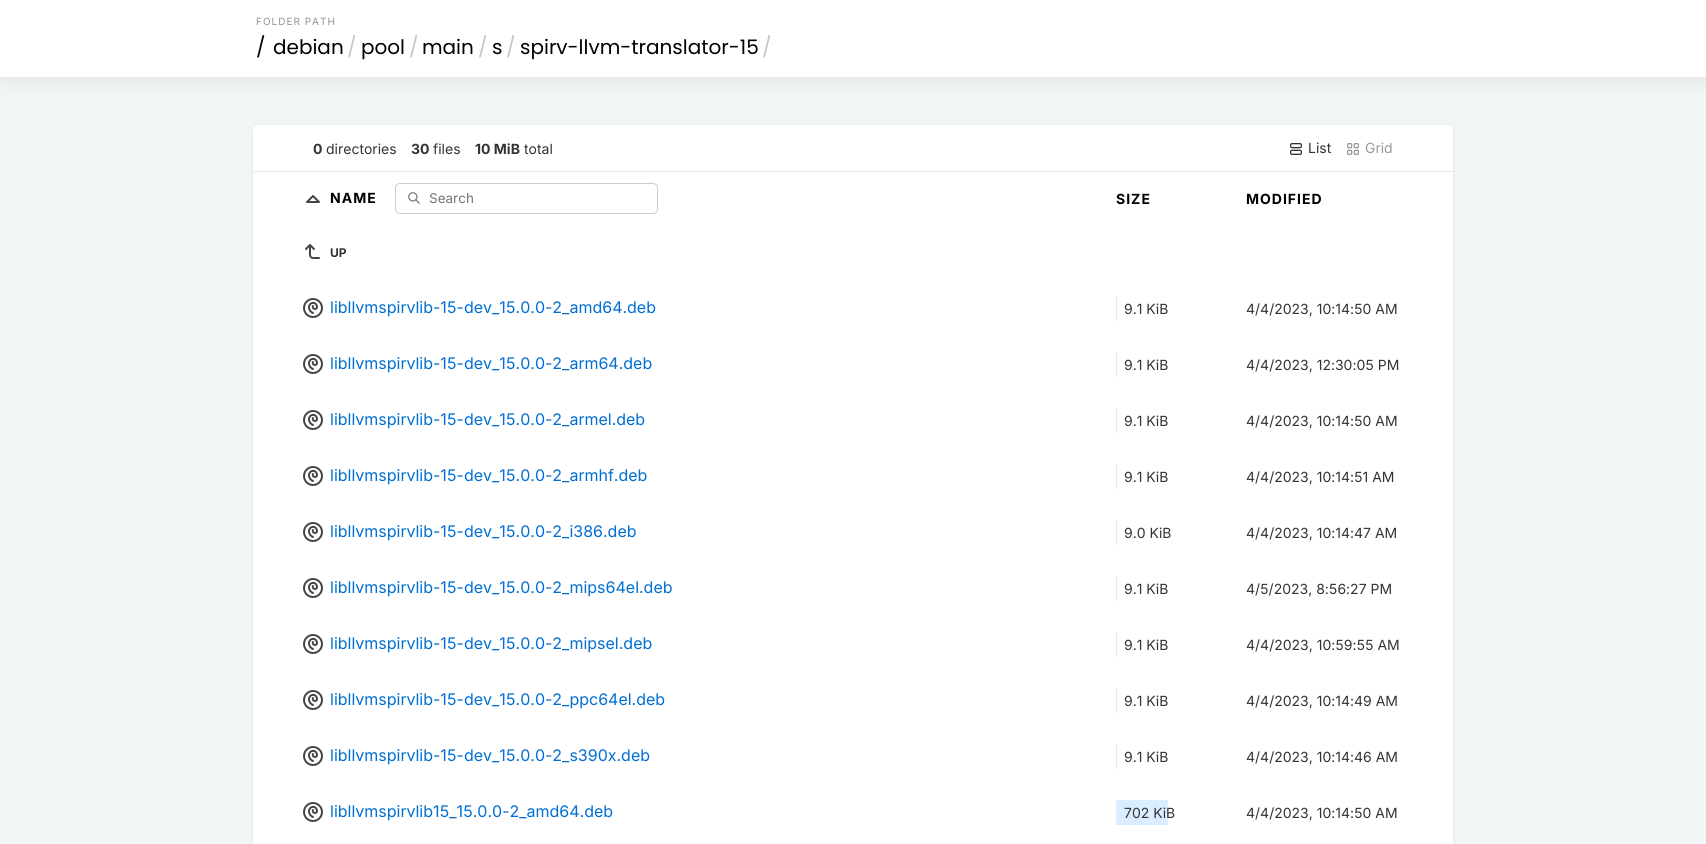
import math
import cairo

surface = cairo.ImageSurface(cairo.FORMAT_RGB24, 1706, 844)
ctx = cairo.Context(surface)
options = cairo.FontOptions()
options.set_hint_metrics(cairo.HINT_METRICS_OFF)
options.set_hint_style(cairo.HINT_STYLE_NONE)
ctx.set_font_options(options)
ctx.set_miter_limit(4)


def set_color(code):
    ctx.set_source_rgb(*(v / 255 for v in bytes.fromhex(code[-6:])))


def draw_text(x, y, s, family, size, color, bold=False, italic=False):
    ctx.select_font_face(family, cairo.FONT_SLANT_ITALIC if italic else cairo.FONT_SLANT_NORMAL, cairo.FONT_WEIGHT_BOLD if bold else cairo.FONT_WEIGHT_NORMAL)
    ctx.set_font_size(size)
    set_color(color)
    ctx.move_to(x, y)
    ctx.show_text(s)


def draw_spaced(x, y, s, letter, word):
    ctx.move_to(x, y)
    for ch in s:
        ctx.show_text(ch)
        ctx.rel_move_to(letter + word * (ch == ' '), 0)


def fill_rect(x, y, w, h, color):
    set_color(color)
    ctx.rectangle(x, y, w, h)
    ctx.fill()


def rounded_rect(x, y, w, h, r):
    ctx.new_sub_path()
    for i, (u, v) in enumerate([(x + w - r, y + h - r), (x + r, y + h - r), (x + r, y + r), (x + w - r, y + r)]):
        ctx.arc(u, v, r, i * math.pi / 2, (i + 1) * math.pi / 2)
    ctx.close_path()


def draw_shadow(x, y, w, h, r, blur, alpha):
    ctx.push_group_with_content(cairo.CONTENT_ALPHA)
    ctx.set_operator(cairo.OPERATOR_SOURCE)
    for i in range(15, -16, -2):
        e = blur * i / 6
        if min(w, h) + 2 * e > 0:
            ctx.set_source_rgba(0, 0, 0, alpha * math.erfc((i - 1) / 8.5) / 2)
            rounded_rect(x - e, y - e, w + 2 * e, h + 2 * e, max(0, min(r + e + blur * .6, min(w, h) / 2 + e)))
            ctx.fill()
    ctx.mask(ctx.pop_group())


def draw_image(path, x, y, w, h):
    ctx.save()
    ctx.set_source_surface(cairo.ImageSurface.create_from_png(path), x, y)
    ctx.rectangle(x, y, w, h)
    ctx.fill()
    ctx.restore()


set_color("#f3f6f7")
ctx.paint()
set_color("#000000")
draw_shadow(0, 0, 1706, 77, 0, 10, 0.1)
fill_rect(0, 0, 1706, 77, "#ffffff")
ctx.select_font_face("Inter")
ctx.set_font_size(10)
set_color("#939393")
draw_spaced(256, 25, "FOLDER PATH", 1, 0)
draw_text(256, 54, "/", "Poppins", 20, "#000000")
draw_text(273, 54, "debian", "Poppins", 20, "#000000")
draw_text(347, 54, "/", "Poppins", 20, "#c5c5c5")
draw_text(361, 54, "pool", "Poppins", 20, "#000000")
draw_text(409, 54, "/", "Poppins", 20, "#c5c5c5")
draw_text(422, 54, "main", "Poppins", 20, "#000000")
draw_text(478, 54, "/", "Poppins", 20, "#c5c5c5")
draw_text(492, 54, "s", "Poppins", 20, "#000000")
draw_text(506, 54, "/", "Poppins", 20, "#c5c5c5")
draw_text(520, 54, "spirv-llvm-translator-15", "Poppins", 20, "#000000")
draw_text(762, 54, "/", "Poppins", 20, "#c5c5c5")
set_color("#000000")
draw_shadow(252, 126, 1202, 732, 6, 2.5, 0.05)
set_color("#ffffff")
rounded_rect(253, 125, 1200, 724, 5)
ctx.fill()
fill_rect(253, 171, 1200, 1, "#e5e9ea")
draw_text(313, 154, "0", "Inter", 14, "#333333", bold=True)
draw_text(326, 154, "directories", "Inter", 14, "#333333")
draw_text(411, 154, "30", "Inter", 14, "#333333", bold=True)
draw_text(433, 154, "files", "Inter", 14, "#333333")
draw_text(475, 154, "10 MiB", "Inter", 14, "#333333", bold=True)
draw_text(524, 154, "total", "Inter", 14, "#333333")
draw_image("assets/img1.png", 1290, 143, 12, 12)
draw_text(1308, 153, "List", "Inter", 14, "#333333")
draw_image("assets/img2.png", 1347, 143, 12, 12)
draw_text(1365, 153, "Grid", "Inter", 14, "#9a9a9a")
ctx.new_path()
ctx.move_to(319, 202)
ctx.line_to(313, 196)
ctx.line_to(307, 202)
ctx.line_to(319, 202)
set_color("#454545")
ctx.set_line_cap(cairo.LINE_CAP_ROUND)
ctx.set_line_join(cairo.LINE_JOIN_ROUND)
ctx.stroke()
ctx.select_font_face("Inter", cairo.FONT_SLANT_NORMAL, cairo.FONT_WEIGHT_BOLD)
set_color("#000000")
draw_spaced(330, 203, "NAME", 1, 0)
draw_image("assets/img3.png", 408, 192, 12, 12)
rounded_rect(395.5, 183.5, 262, 30, 4.5)
set_color("#cccccc")
ctx.set_line_width(1)
ctx.set_line_cap(cairo.LINE_CAP_BUTT)
ctx.set_line_join(cairo.LINE_JOIN_MITER)
ctx.stroke()
draw_text(429, 203, "Search", "Inter", 13.5, "#757575")
ctx.select_font_face("Inter", cairo.FONT_SLANT_NORMAL, cairo.FONT_WEIGHT_BOLD)
ctx.set_font_size(14)
set_color("#000000")
draw_spaced(1116, 204, "SIZE", 1, 0)
draw_spaced(1246, 204, "MODIFIED", 1, 0)
draw_image("assets/img4.png", 305, 244, 15, 15)
draw_text(330, 257, "UP", "Inter", 12, "#333333", bold=True)
draw_image("assets/img5.png", 303, 298, 20, 20)
draw_text(330, 313, "libllvmspirvlib-15-dev_15.0.0-2_amd64.deb", "Inter", 16, "#006ed3")
fill_rect(1116, 296, 1, 25, "#dbeeff")
draw_text(1124, 314, "9.1 KiB", "Inter", 14, "#333333")
draw_text(1246, 314, "4/4/2023, 10:14:50 AM", "Inter", 14, "#333333")
draw_image("assets/img5.png", 303, 354, 20, 20)
draw_text(330, 369, "libllvmspirvlib-15-dev_15.0.0-2_arm64.deb", "Inter", 16, "#006ed3")
fill_rect(1116, 352, 1, 25, "#dbeeff")
draw_text(1124, 370, "9.1 KiB", "Inter", 14, "#333333")
draw_text(1246, 370, "4/4/2023, 12:30:05 PM", "Inter", 14, "#333333")
draw_image("assets/img5.png", 303, 410, 20, 20)
draw_text(330, 425, "libllvmspirvlib-15-dev_15.0.0-2_armel.deb", "Inter", 16, "#006ed3")
fill_rect(1116, 408, 1, 25, "#dbeeff")
draw_text(1124, 426, "9.1 KiB", "Inter", 14, "#333333")
draw_text(1246, 426, "4/4/2023, 10:14:50 AM", "Inter", 14, "#333333")
draw_image("assets/img5.png", 303, 466, 20, 20)
draw_text(330, 481, "libllvmspirvlib-15-dev_15.0.0-2_armhf.deb", "Inter", 16, "#006ed3")
fill_rect(1116, 464, 1, 25, "#dbeeff")
draw_text(1124, 482, "9.1 KiB", "Inter", 14, "#333333")
draw_text(1246, 482, "4/4/2023, 10:14:51 AM", "Inter", 14, "#333333")
draw_image("assets/img5.png", 303, 522, 20, 20)
draw_text(330, 537, "libllvmspirvlib-15-dev_15.0.0-2_i386.deb", "Inter", 16, "#006ed3")
fill_rect(1116, 520, 1, 25, "#dbeeff")
draw_text(1124, 538, "9.0 KiB", "Inter", 14, "#333333")
draw_text(1246, 538, "4/4/2023, 10:14:47 AM", "Inter", 14, "#333333")
draw_image("assets/img5.png", 303, 578, 20, 20)
draw_text(330, 593, "libllvmspirvlib-15-dev_15.0.0-2_mips64el.deb", "Inter", 16, "#006ed3")
fill_rect(1116, 576, 1, 25, "#dbeeff")
draw_text(1124, 594, "9.1 KiB", "Inter", 14, "#333333")
draw_text(1246, 594, "4/5/2023, 8:56:27 PM", "Inter", 14, "#333333")
draw_image("assets/img5.png", 303, 634, 20, 20)
draw_text(330, 649, "libllvmspirvlib-15-dev_15.0.0-2_mipsel.deb", "Inter", 16, "#006ed3")
fill_rect(1116, 632, 1, 25, "#dbeeff")
draw_text(1124, 650, "9.1 KiB", "Inter", 14, "#333333")
draw_text(1246, 650, "4/4/2023, 10:59:55 AM", "Inter", 14, "#333333")
draw_image("assets/img5.png", 303, 690, 20, 20)
draw_text(330, 705, "libllvmspirvlib-15-dev_15.0.0-2_ppc64el.deb", "Inter", 16, "#006ed3")
fill_rect(1116, 688, 1, 25, "#dbeeff")
draw_text(1124, 706, "9.1 KiB", "Inter", 14, "#333333")
draw_text(1246, 706, "4/4/2023, 10:14:49 AM", "Inter", 14, "#333333")
draw_image("assets/img5.png", 303, 746, 20, 20)
draw_text(330, 761, "libllvmspirvlib-15-dev_15.0.0-2_s390x.deb", "Inter", 16, "#006ed3")
fill_rect(1116, 744, 1, 25, "#dbeeff")
draw_text(1124, 762, "9.1 KiB", "Inter", 14, "#333333")
draw_text(1246, 762, "4/4/2023, 10:14:46 AM", "Inter", 14, "#333333")
draw_image("assets/img5.png", 303, 802, 20, 20)
draw_text(330, 817, "libllvmspirvlib15_15.0.0-2_amd64.deb", "Inter", 16, "#006ed3")
fill_rect(1116, 800, 52, 25, "#dbeeff")
draw_text(1124, 818, "702 KiB", "Inter", 14, "#333333")
draw_text(1246, 818, "4/4/2023, 10:14:50 AM", "Inter", 14, "#333333")
surface.write_to_png("output.png")
